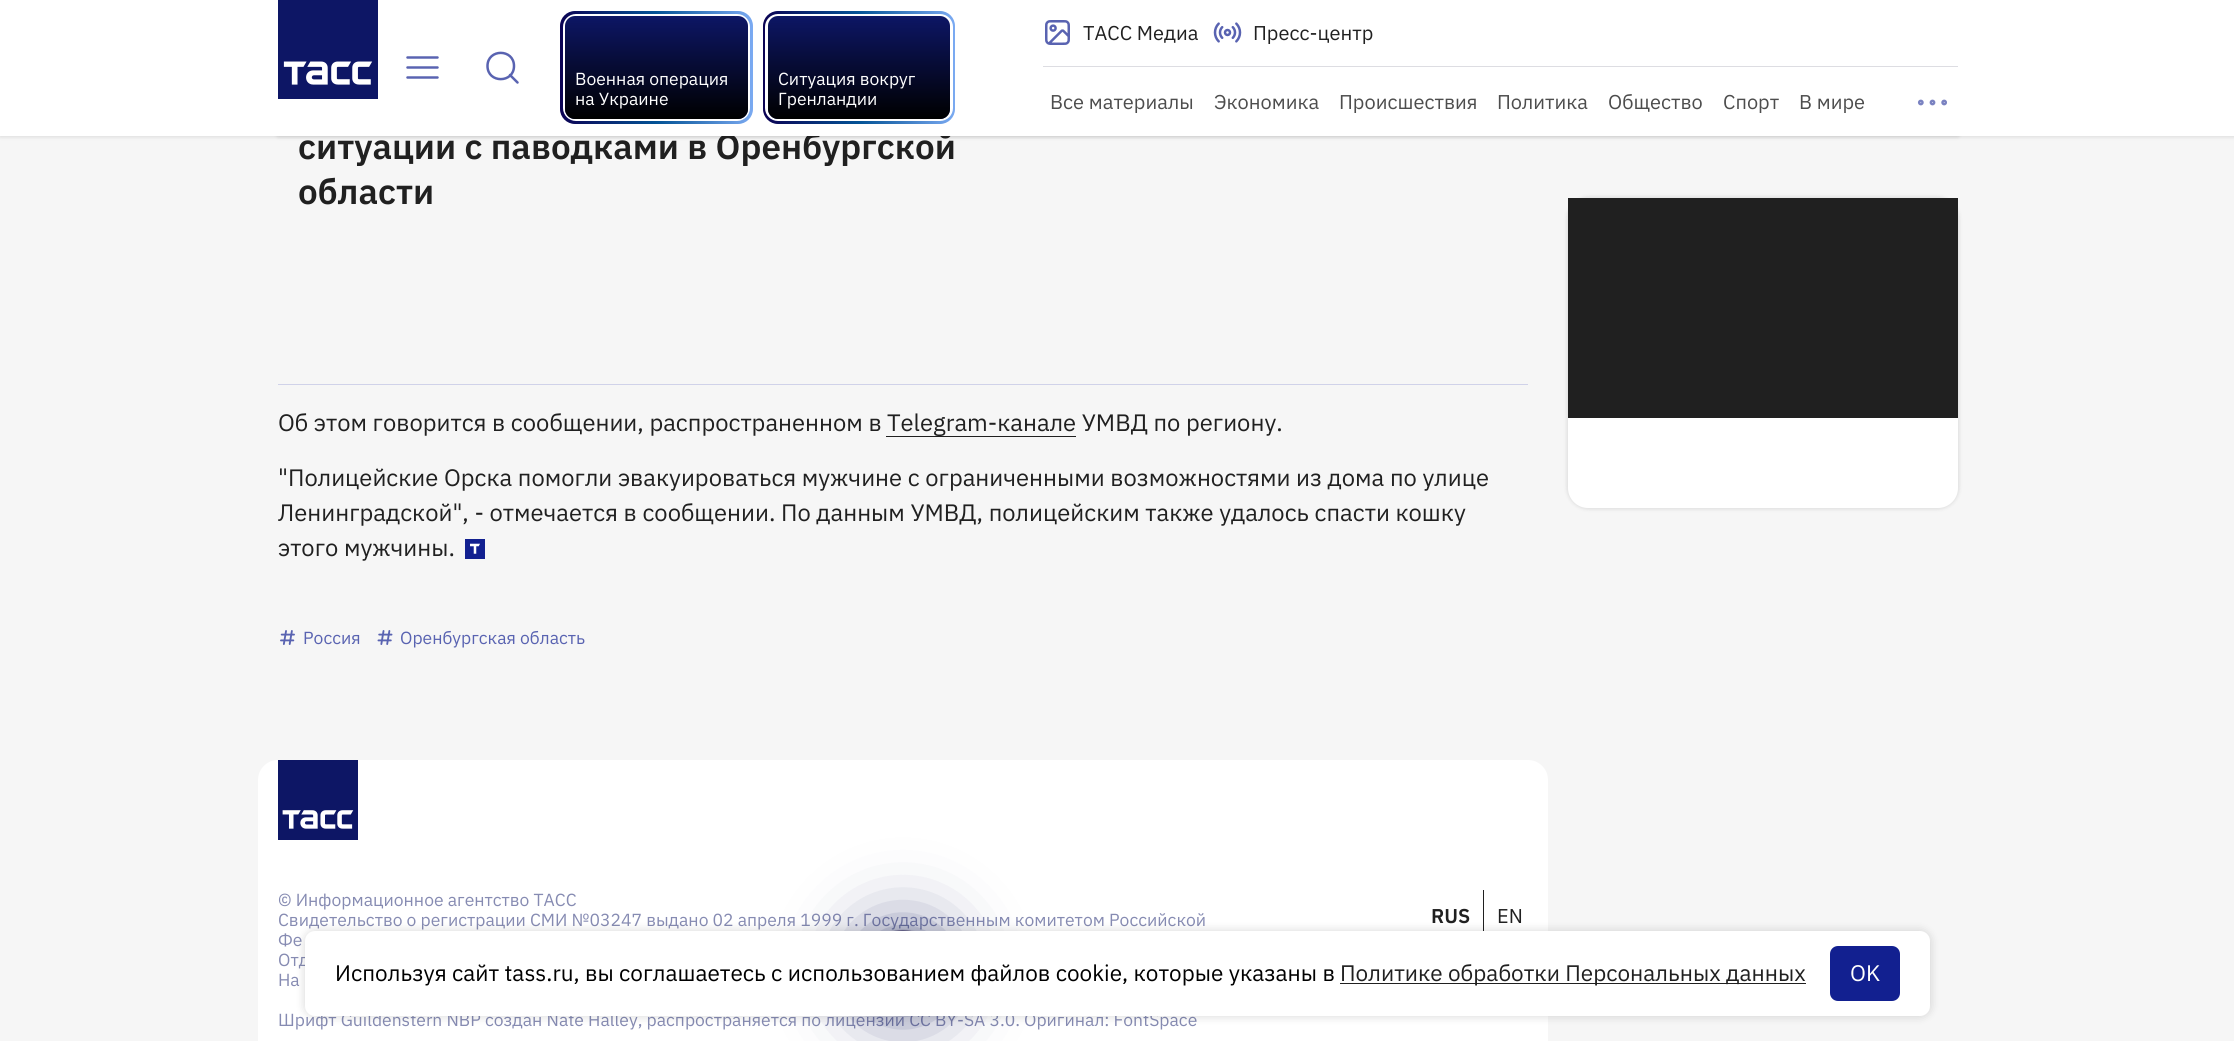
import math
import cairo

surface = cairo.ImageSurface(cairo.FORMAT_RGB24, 2234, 1041)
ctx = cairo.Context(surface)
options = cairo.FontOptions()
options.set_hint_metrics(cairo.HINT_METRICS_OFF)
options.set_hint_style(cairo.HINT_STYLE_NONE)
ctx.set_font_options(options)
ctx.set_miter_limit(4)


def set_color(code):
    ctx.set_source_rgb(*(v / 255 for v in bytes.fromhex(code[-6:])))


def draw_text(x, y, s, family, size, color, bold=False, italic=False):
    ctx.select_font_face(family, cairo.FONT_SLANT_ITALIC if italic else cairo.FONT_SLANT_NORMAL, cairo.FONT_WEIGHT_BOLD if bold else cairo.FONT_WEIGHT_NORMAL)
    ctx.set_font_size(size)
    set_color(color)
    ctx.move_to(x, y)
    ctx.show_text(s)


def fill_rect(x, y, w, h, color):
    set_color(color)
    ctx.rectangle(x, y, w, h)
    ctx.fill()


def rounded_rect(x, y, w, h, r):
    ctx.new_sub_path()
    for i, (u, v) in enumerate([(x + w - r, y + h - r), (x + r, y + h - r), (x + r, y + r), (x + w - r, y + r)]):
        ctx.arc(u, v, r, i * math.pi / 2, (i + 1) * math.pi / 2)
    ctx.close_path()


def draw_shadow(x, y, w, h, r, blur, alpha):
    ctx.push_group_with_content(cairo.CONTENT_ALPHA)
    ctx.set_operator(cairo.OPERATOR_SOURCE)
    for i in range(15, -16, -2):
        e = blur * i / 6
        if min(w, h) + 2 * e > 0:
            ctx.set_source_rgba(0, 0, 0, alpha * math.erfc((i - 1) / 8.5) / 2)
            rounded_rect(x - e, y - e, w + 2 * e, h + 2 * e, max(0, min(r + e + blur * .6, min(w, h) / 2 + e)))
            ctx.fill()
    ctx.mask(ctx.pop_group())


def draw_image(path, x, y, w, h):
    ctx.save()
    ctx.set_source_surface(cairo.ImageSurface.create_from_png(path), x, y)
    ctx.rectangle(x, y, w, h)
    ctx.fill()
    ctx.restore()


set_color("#f6f6f6")
ctx.paint()
set_color("#000000")
draw_shadow(278, -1, 1680, 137, 0, 2.5, 0.16)
draw_shadow(0, -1, 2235, 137, 0, 2.5, 0.16)
draw_text(298, 159, "ситуации с паводками в Оренбургской", "IBM Plex Sans SemiBold", 35, "#202020")
fill_rect(0, 0, 2234, 136, "#ffffff")
fill_rect(278, 0, 100, 99, "#0d1665")
draw_image("assets/img1.png", 283, 61, 90, 24)
fill_rect(1043, 66, 915, 1, "#dddde2")
draw_image("assets/img2.png", 1045, 20, 25, 25)
draw_text(1083, 40, "ТАСС Медиа", "IBM Plex Sans", 20, "#202020")
draw_image("assets/img3.png", 1213, 22, 29, 21)
draw_text(1253, 40, "Пресс-центр", "IBM Plex Sans", 20, "#202020")
draw_image("assets/img4.png", 406, 56, 33, 23)
ctx.new_path()
ctx.move_to(517.5, 82.5)
ctx.line_to(510, 75)
ctx.move_to(514, 66)
ctx.curve_to(514, 83.5, 487.5, 83.5, 487.5, 66)
ctx.curve_to(487.5, 48.5, 514, 48.5, 514, 66)
set_color("#5963b1")
ctx.set_line_width(2.5)
ctx.set_line_cap(cairo.LINE_CAP_ROUND)
ctx.set_line_join(cairo.LINE_JOIN_ROUND)
ctx.stroke()
gradient = cairo.LinearGradient(560, 68, 753, 67)
gradient.add_color_stop_rgba(0, 0.043, 0.008, 0.325, 1)
gradient.add_color_stop_rgba(0.5, 0.012, 0.325, 0.588, 1)
gradient.add_color_stop_rgba(1, 0.482, 0.667, 0.949, 1)
ctx.set_source(gradient)
rounded_rect(560, 11, 193, 113, 15)
ctx.fill()
set_color("#ffffff")
rounded_rect(563, 14, 187, 107, 13)
ctx.fill()
set_color("#0d1665")
rounded_rect(565, 16, 183, 103, 10)
ctx.fill()
gradient = cairo.LinearGradient(656, 16, 656, 119)
gradient.add_color_stop_rgba(0, 0, 0, 0, 0)
gradient.add_color_stop_rgba(1, 0, 0, 0, 1)
ctx.set_source(gradient)
rounded_rect(565, 16, 183, 103, 10)
ctx.fill()
draw_text(575, 85, "Военная операция", "IBM Plex Sans", 17.5, "#ffffff")
draw_text(575, 105, "на Украине", "IBM Plex Sans", 17.5, "#ffffff")
gradient = cairo.LinearGradient(763, 68, 955, 67)
gradient.add_color_stop_rgba(0, 0.043, 0.008, 0.325, 1)
gradient.add_color_stop_rgba(0.5, 0.012, 0.325, 0.588, 1)
gradient.add_color_stop_rgba(1, 0.482, 0.667, 0.949, 1)
ctx.set_source(gradient)
rounded_rect(763, 11, 192, 113, 15)
ctx.fill()
set_color("#ffffff")
rounded_rect(765, 14, 188, 107, 13)
ctx.fill()
set_color("#0d1665")
rounded_rect(768, 16, 182, 103, 10)
ctx.fill()
gradient = cairo.LinearGradient(859, 16, 859, 119)
gradient.add_color_stop_rgba(0, 0, 0, 0, 0)
gradient.add_color_stop_rgba(1, 0, 0, 0, 1)
ctx.set_source(gradient)
rounded_rect(768, 16, 182, 103, 10)
ctx.fill()
draw_text(778, 85, "Ситуация вокруг", "IBM Plex Sans", 17.5, "#ffffff")
draw_text(778, 105, "Гренландии", "IBM Plex Sans", 17.5, "#ffffff")
draw_text(1050, 109, "Все материалы", "IBM Plex Sans", 20, "#4d4d4d")
draw_text(1214, 109, "Экономика", "IBM Plex Sans", 20, "#4d4d4d")
draw_text(1339, 109, "Происшествия", "IBM Plex Sans", 20, "#4d4d4d")
draw_text(1497, 109, "Политика", "IBM Plex Sans", 20, "#4d4d4d")
draw_text(1608, 109, "Общество", "IBM Plex Sans", 20, "#4d4d4d")
draw_text(1723, 109, "Спорт", "IBM Plex Sans", 20, "#4d4d4d")
draw_text(1799, 109, "В мире", "IBM Plex Sans", 20, "#4d4d4d")
draw_image("assets/img5.png", 1917, 99, 30, 7)
fill_rect(278, 384, 1250, 1, "#d0d2e9")
draw_text(298, 204, "области", "IBM Plex Sans SemiBold", 35, "#202020")
draw_text(278, 431, "Об этом говорится в сообщении, распространенном в", "IBM Plex Sans", 23.75, "#202020")
fill_rect(886, 436, 190, 1, "#202020")
draw_text(887, 431, "Telegram-канале УМВД по региону.", "IBM Plex Sans", 23.75, "#202020")
draw_text(278, 486, "\"Полицейские Орска помогли эвакуироваться мужчине с ограниченными возможностями из дома по улице", "IBM Plex Sans", 23.75, "#202020")
draw_text(278, 521, "Ленинградской\", - отмечается в сообщении. По данным УМВД, полицейским также удалось спасти кошку", "IBM Plex Sans", 23.75, "#202020")
draw_text(278, 556, "этого мужчины.", "IBM Plex Sans", 23.75, "#202020")
draw_image("assets/img6.png", 465, 539, 20, 20)
draw_image("assets/img7.png", 280, 630, 15, 15)
draw_text(303, 644, "Россия", "IBM Plex Sans", 17.5, "#5963b1")
draw_image("assets/img8.png", 377, 630, 16, 15)
draw_text(400, 644, "Оренбургская область", "IBM Plex Sans", 17.5, "#5963b1")
set_color("#ffffff")
ctx.new_path()
ctx.move_to(278, 760)
ctx.line_to(1528, 760)
ctx.curve_to(1539, 760, 1548, 769, 1548, 780)
ctx.line_to(1548, 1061)
ctx.line_to(258, 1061)
ctx.line_to(258, 780)
ctx.curve_to(258, 769, 267, 760, 278, 760)
ctx.close_path()
ctx.fill()
draw_image("assets/img9.png", 278, 760, 80, 80)
draw_text(278, 906, "© Информационное агентство ТАСС", "IBM Plex Sans", 17.5, "#868bb2")
draw_text(278, 926, "Свидетельство о регистрации СМИ №03247 выдано 02 апреля 1999 г. Государственным комитетом Российской", "IBM Plex Sans", 17.5, "#868bb2")
draw_text(278, 946, "Фе", "IBM Plex Sans", 17.5, "#868bb2")
draw_text(278, 966, "Отд", "IBM Plex Sans", 17.5, "#868bb2")
draw_text(278, 986, "На", "IBM Plex Sans", 17.5, "#868bb2")
draw_text(278, 1026, "Шрифт Guildenstern NBP создан Nate Halley, распространяется по лицензии CC BY-SA 3.0. Оригинал: FontSpace", "IBM Plex Sans", 17.5, "#868bb2")
draw_text(1431, 923, "RUS", "IBM Plex Sans SemiBold", 20, "#202020")
fill_rect(1483, 890, 1, 41, "#202020")
draw_text(1497, 923, "EN", "IBM Plex Sans", 20, "#202020")
set_color("#000000")
draw_shadow(1568, 198, 390, 310, 20, 2.5, 0.16)
fill_rect(1568, 198, 390, 220, "#202020")
set_color("#ffffff")
ctx.new_path()
ctx.move_to(1568, 418)
ctx.line_to(1958, 418)
ctx.line_to(1958, 488)
ctx.curve_to(1958, 499, 1949, 508, 1938, 508)
ctx.line_to(1588, 508)
ctx.curve_to(1577, 508, 1568, 499, 1568, 488)
ctx.close_path()
ctx.fill()
set_color("#0b1458")
draw_shadow(863, 931, 80, 80, 40, 37.5, 0.6)
set_color("#110736")
draw_shadow(863, 931, 80, 80, 40, 1, 1)
draw_image("assets/img10.png", 894, 930, 17, 1)
set_color("#000000")
draw_shadow(305, 931, 1625, 85, 10, 5, 0.16)
set_color("#ffffff")
rounded_rect(305, 931, 1625, 85, 10)
ctx.fill()
draw_text(335, 981, "Используя сайт tass.ru, вы соглашаетесь с использованием файлов cookie, которые указаны в", "IBM Plex Sans", 22.5, "#000000")
fill_rect(1340, 983, 466, 1, "#202020")
draw_text(1340, 981, "Политике обработки Персональных данных", "IBM Plex Sans", 22.5, "#202020")
set_color("#122090")
rounded_rect(1830, 946, 70, 55, 8)
ctx.fill()
draw_text(1850, 981, "OK", "IBM Plex Sans", 22.5, "#ffffff")
surface.write_to_png("output.png")
